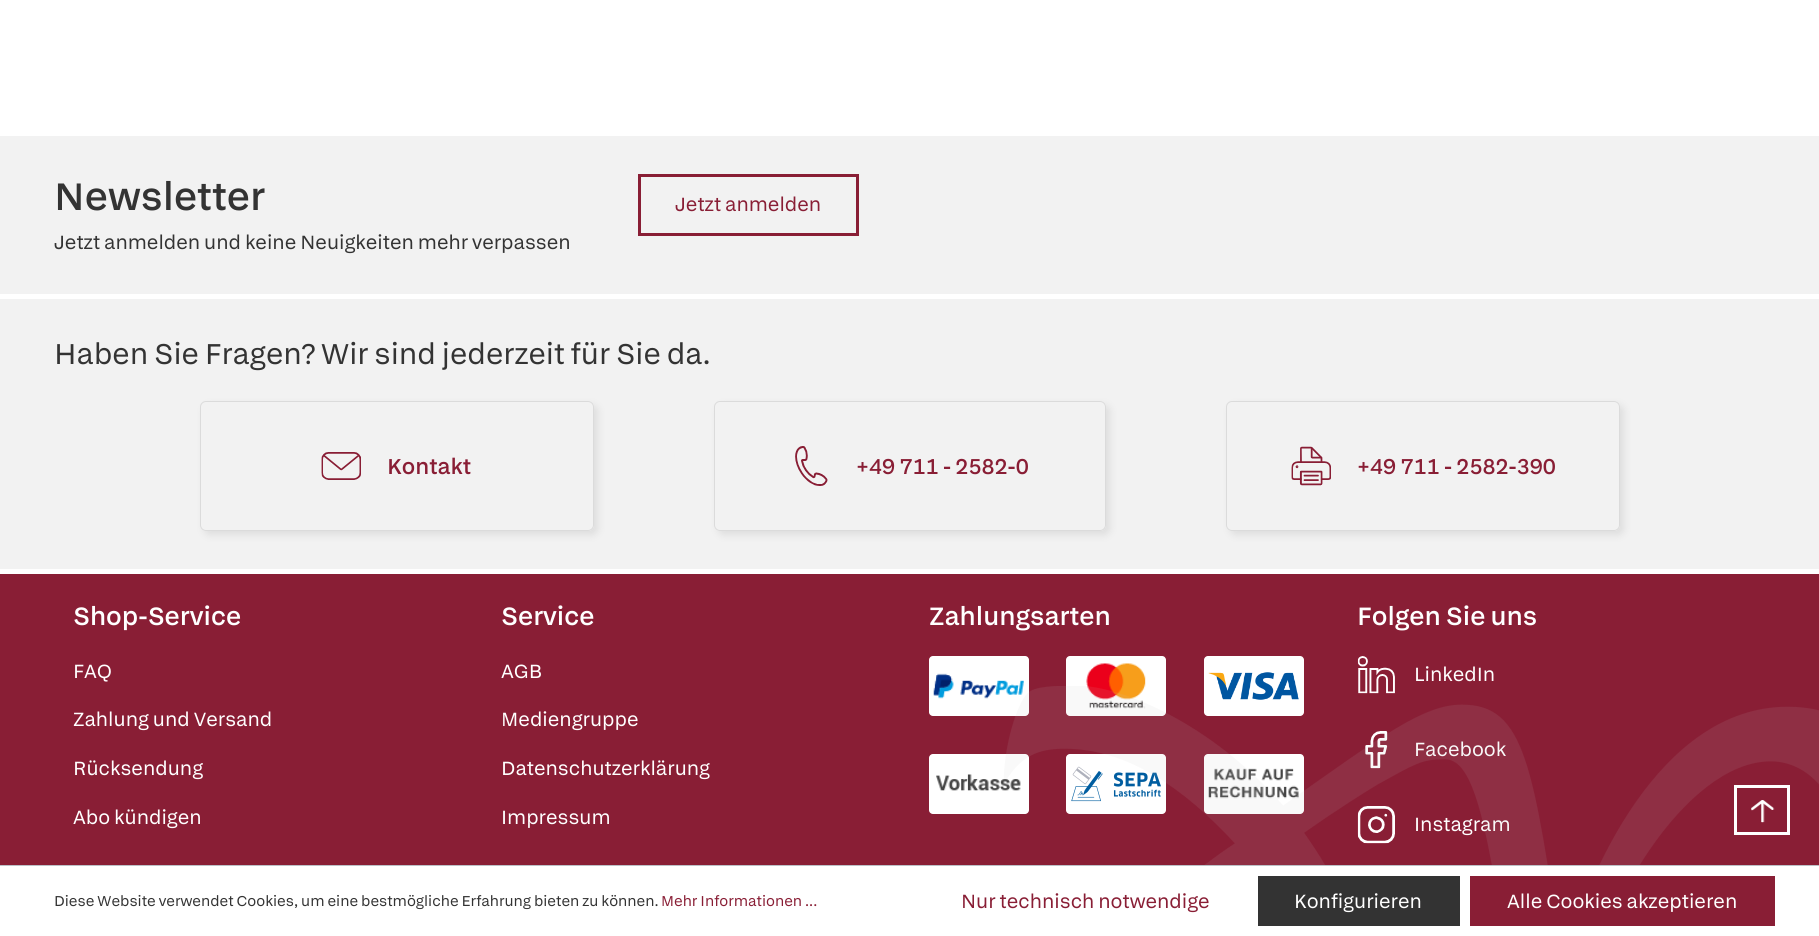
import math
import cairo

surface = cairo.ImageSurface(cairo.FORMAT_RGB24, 1819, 936)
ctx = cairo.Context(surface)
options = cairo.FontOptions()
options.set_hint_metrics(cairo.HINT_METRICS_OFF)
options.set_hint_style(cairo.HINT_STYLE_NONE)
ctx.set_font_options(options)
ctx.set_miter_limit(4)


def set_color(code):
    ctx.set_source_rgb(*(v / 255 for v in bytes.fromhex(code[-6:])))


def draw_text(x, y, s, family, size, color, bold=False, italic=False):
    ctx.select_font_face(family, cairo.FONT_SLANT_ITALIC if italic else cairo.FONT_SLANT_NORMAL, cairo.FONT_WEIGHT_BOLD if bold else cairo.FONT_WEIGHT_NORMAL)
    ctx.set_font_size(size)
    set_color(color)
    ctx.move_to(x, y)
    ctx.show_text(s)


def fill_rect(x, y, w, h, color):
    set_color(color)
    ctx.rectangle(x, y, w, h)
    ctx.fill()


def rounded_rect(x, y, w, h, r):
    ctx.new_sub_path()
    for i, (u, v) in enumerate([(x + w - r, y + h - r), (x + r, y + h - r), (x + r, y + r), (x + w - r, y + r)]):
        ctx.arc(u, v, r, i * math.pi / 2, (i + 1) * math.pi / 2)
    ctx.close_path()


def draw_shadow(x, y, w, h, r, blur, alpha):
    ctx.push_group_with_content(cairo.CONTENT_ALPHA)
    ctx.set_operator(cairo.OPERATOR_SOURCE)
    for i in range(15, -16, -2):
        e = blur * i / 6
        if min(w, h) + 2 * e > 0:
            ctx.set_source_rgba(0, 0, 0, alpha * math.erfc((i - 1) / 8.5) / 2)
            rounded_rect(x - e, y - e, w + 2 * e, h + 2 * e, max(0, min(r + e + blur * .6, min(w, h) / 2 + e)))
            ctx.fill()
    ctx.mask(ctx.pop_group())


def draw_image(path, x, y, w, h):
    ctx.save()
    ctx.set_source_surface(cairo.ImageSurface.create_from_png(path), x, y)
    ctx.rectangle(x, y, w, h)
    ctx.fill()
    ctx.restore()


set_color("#ffffff")
ctx.paint()
fill_rect(0, 136, 1819, 158, "#f2f2f2")
draw_text(54, 210, "Newsletter", "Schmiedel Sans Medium", 40, "#333333")
draw_text(54, 249, "Jetzt anmelden und keine Neuigkeiten mehr verpassen", "Schmiedel Sans", 20, "#333333")
ctx.rectangle(639.5, 175.5, 218, 59)
set_color("#891e35")
ctx.set_line_width(3)
ctx.stroke()
draw_text(675, 211, "Jetzt anmelden", "Schmiedel Sans", 20, "#891e35")
fill_rect(0, 299, 1819, 270, "#f2f2f2")
draw_text(54, 364, "Haben Sie Fragen? Wir sind jederzeit für Sie da.", "Schmiedel Sans", 30, "#333333")
ctx.save()
ctx.set_fill_rule(cairo.FILL_RULE_EVEN_ODD)
ctx.new_path()
ctx.move_to(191, 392)
ctx.line_to(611, 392)
ctx.line_to(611, 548)
ctx.line_to(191, 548)
ctx.close_path()
ctx.move_to(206, 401)
ctx.line_to(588, 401)
ctx.curve_to(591.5, 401, 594, 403.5, 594, 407)
ctx.line_to(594, 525)
ctx.curve_to(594, 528.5, 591.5, 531, 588, 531)
ctx.line_to(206, 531)
ctx.curve_to(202.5, 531, 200, 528.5, 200, 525)
ctx.line_to(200, 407)
ctx.curve_to(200, 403.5, 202.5, 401, 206, 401)
ctx.close_path()
ctx.clip()
set_color("#707070")
draw_shadow(204, 405, 394, 130, 6, 4, 0.16)
ctx.restore()
rounded_rect(200.5, 401.5, 393, 129, 5.5)
set_color("#dbdbdb")
ctx.set_line_width(1)
ctx.stroke()
draw_image("assets/img1.png", 321, 452, 40, 28)
draw_text(387, 474, "Kontakt", "Schmiedel Sans Medium", 22.5, "#891e35")
ctx.save()
ctx.set_fill_rule(cairo.FILL_RULE_EVEN_ODD)
ctx.new_path()
ctx.move_to(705, 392)
ctx.line_to(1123, 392)
ctx.line_to(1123, 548)
ctx.line_to(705, 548)
ctx.close_path()
ctx.move_to(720, 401)
ctx.line_to(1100, 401)
ctx.curve_to(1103.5, 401, 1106, 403.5, 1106, 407)
ctx.line_to(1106, 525)
ctx.curve_to(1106, 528.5, 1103.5, 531, 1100, 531)
ctx.line_to(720, 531)
ctx.curve_to(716.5, 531, 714, 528.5, 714, 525)
ctx.line_to(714, 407)
ctx.curve_to(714, 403.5, 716.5, 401, 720, 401)
ctx.close_path()
ctx.clip()
set_color("#707070")
draw_shadow(718, 405, 392, 130, 6, 4, 0.16)
ctx.restore()
rounded_rect(714.5, 401.5, 391, 129, 5.5)
set_color("#dbdbdb")
ctx.stroke()
draw_image("assets/img2.png", 795, 446, 33, 40)
draw_text(856, 474, "+49 711 - 2582-0", "Schmiedel Sans Medium", 22.5, "#891e35")
ctx.save()
ctx.set_fill_rule(cairo.FILL_RULE_EVEN_ODD)
ctx.new_path()
ctx.move_to(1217, 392)
ctx.line_to(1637, 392)
ctx.line_to(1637, 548)
ctx.line_to(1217, 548)
ctx.close_path()
ctx.move_to(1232, 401)
ctx.line_to(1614, 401)
ctx.curve_to(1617.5, 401, 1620, 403.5, 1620, 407)
ctx.line_to(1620, 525)
ctx.curve_to(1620, 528.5, 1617.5, 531, 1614, 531)
ctx.line_to(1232, 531)
ctx.curve_to(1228.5, 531, 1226, 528.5, 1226, 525)
ctx.line_to(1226, 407)
ctx.curve_to(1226, 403.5, 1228.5, 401, 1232, 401)
ctx.close_path()
ctx.clip()
set_color("#707070")
draw_shadow(1230, 405, 394, 130, 6, 4, 0.16)
ctx.restore()
rounded_rect(1226.5, 401.5, 393, 129, 5.5)
set_color("#dbdbdb")
ctx.stroke()
draw_image("assets/img3.png", 1291, 446, 40, 40)
draw_text(1357, 474, "+49 711 - 2582-390", "Schmiedel Sans Medium", 22.5, "#891e35")
fill_rect(0, 574, 1819, 291, "#891e35")
draw_text(73, 625, "Shop-Service", "Schmiedel Sans Medium", 26.25, "#ffffff")
draw_text(73, 678, "FAQ", "Schmiedel Sans", 20, "#ffffff")
draw_text(73, 726, "Zahlung und Versand", "Schmiedel Sans", 20, "#ffffff")
draw_text(73, 775, "Rücksendung", "Schmiedel Sans", 20, "#ffffff")
draw_text(73, 824, "Abo kündigen", "Schmiedel Sans", 20, "#ffffff")
draw_text(501, 625, "Service", "Schmiedel Sans Medium", 26.25, "#ffffff")
draw_text(501, 678, "AGB", "Schmiedel Sans", 20, "#ffffff")
draw_text(501, 726, "Mediengruppe", "Schmiedel Sans", 20, "#ffffff")
draw_text(501, 775, "Datenschutzerklärung", "Schmiedel Sans", 20, "#ffffff")
draw_text(501, 824, "Impressum", "Schmiedel Sans", 20, "#ffffff")
draw_text(929, 625, "Zahlungsarten", "Schmiedel Sans Medium", 26.25, "#ffffff")
rounded_rect(929, 656, 100, 60, 4)
ctx.fill()
draw_image("assets/img4.png", 933, 673, 91, 26)
rounded_rect(1066, 656, 100, 60, 4)
ctx.fill()
draw_image("assets/img5.png", 1086, 663, 60, 46)
rounded_rect(1204, 656, 100, 60, 4)
ctx.fill()
draw_image("assets/img6.png", 1208, 672, 91, 28)
rounded_rect(929, 754, 100, 60, 4)
ctx.fill()
draw_image("assets/img7.png", 936, 774, 85, 17)
rounded_rect(1066, 754, 100, 60, 4)
ctx.fill()
draw_image("assets/img8.png", 1071, 766, 90, 36)
rounded_rect(1204, 754, 100, 60, 4)
ctx.fill()
draw_image("assets/img9.png", 1208, 768, 91, 31)
draw_text(1357, 625, "Folgen Sie uns", "Schmiedel Sans Medium", 26.25, "#ffffff")
draw_image("assets/img10.png", 1357, 656, 38, 38)
draw_text(1414, 681, "LinkedIn", "Schmiedel Sans", 20, "#ffffff")
draw_image("assets/img11.png", 1365, 731, 23, 38)
draw_text(1414, 756, "Facebook", "Schmiedel Sans", 20, "#ffffff")
draw_image("assets/img12.png", 1357, 806, 38, 38)
draw_text(1414, 831, "Instagram", "Schmiedel Sans", 20, "#ffffff")
draw_image("assets/img13.png", 1003, 686, 816, 179)
ctx.rectangle(1735.5, 786.5, 53, 47)
ctx.set_line_width(3)
ctx.stroke()
draw_image("assets/img14.png", 1751, 800, 24, 23)
fill_rect(0, 865, 1819, 1, "#bcc1c7")
draw_text(54, 906, "Diese Website verwendet Cookies, um eine bestmögliche Erfahrung bieten zu können.", "Schmiedel Sans", 15, "#333333")
draw_text(661, 906, "Mehr Informationen ...", "Schmiedel Sans", 15, "#891e35")
draw_text(961, 908, "Nur technisch notwendige", "Schmiedel Sans", 20, "#891e35")
fill_rect(1258, 876, 202, 50, "#333333")
draw_text(1294, 908, "Konfigurieren", "Schmiedel Sans", 20, "#ffffff")
fill_rect(1470, 876, 305, 50, "#891e35")
draw_text(1507, 908, "Alle Cookies akzeptieren", "Schmiedel Sans", 20, "#ffffff")
surface.write_to_png("output.png")
